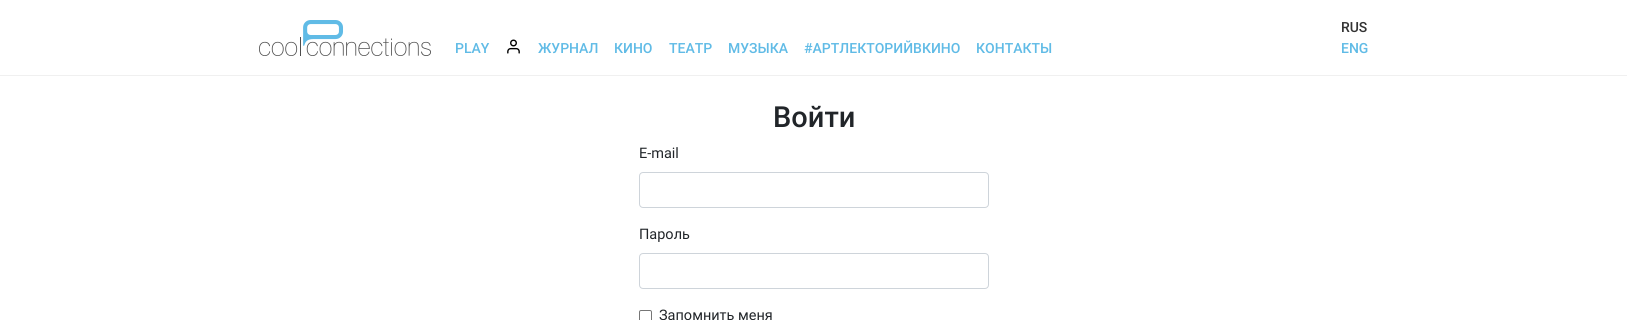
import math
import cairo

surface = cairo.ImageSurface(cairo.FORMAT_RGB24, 1627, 320)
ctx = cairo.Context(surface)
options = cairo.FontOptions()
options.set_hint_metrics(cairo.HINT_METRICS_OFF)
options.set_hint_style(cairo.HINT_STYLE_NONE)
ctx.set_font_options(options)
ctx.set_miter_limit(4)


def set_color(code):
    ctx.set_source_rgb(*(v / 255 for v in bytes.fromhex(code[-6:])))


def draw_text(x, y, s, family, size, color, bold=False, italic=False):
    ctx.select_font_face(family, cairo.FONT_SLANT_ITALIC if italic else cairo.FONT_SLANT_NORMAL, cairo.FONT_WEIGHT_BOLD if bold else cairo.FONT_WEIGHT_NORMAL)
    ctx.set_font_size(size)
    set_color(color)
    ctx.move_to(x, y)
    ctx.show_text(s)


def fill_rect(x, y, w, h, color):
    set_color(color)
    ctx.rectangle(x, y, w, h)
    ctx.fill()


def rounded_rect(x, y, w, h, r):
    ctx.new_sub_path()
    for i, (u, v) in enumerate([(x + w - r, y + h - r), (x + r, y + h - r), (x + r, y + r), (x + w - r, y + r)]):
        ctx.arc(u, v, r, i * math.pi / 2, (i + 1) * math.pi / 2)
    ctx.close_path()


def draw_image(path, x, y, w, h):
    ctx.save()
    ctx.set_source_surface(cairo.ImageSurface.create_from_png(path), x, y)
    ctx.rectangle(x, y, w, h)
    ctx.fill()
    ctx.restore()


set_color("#ffffff")
ctx.paint()
fill_rect(0, 75, 1627, 1, "#f0f0f0")
draw_image("assets/img1.png", 259, 20, 172, 36)
draw_text(455, 53, "PLAY", "Roboto Medium", 14, "#60bbe6")
draw_image("assets/img2.png", 507, 39, 13, 15)
draw_text(538, 53, "ЖУРНАЛ", "Roboto Medium", 14, "#60bbe6")
draw_text(614, 53, "КИНО", "Roboto Medium", 14, "#60bbe6")
draw_text(669, 53, "ТЕАТР", "Roboto Medium", 14, "#60bbe6")
draw_text(728, 53, "МУЗЫКА", "Roboto Medium", 14, "#60bbe6")
draw_text(804, 53, "#АРТЛЕКТОРИЙВКИНО", "Roboto Medium", 14, "#60bbe6")
draw_text(976, 53, "КОНТАКТЫ", "Roboto Medium", 14, "#60bbe6")
draw_text(1341, 32, "RUS", "Roboto Medium", 14, "#333333")
draw_text(1341, 53, "ENG", "Roboto Medium", 14, "#60bbe6")
draw_text(773, 127, "Войти", "Roboto Medium", 29, "#212529")
draw_text(639, 158, "E-mail", "Roboto", 14.5, "#212529")
rounded_rect(639.5, 172.5, 349, 35, 3.5)
set_color("#ced4da")
ctx.set_line_width(1)
ctx.stroke()
draw_text(639, 239, "Пароль", "Roboto", 14.5, "#212529")
rounded_rect(639.5, 253.5, 349, 35, 3.5)
set_color("#ced4da")
ctx.stroke()
rounded_rect(639.5, 310.5, 12, 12, 1.5)
set_color("#767676")
ctx.stroke()
draw_text(659, 320, "Запомнить меня", "Roboto", 14.5, "#212529")
surface.write_to_png("output.png")
